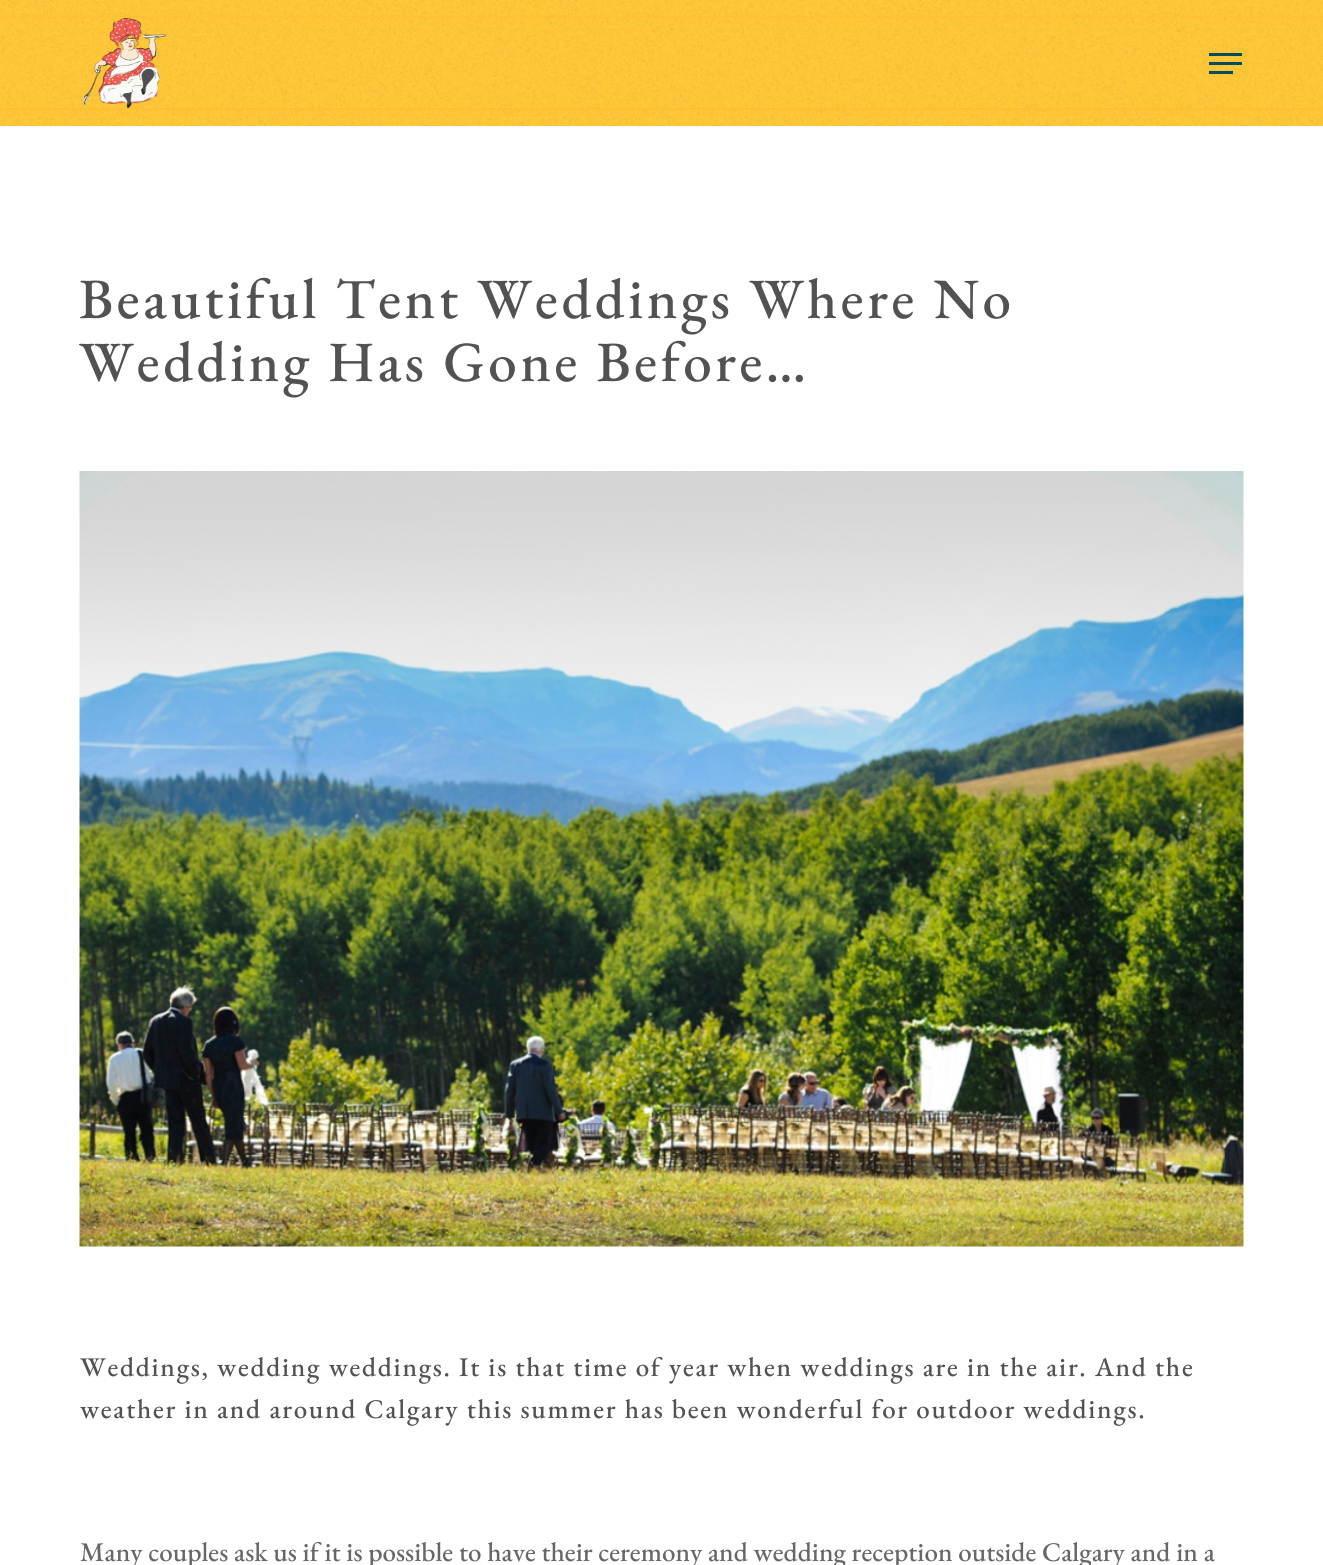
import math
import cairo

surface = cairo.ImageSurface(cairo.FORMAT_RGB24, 1323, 1565)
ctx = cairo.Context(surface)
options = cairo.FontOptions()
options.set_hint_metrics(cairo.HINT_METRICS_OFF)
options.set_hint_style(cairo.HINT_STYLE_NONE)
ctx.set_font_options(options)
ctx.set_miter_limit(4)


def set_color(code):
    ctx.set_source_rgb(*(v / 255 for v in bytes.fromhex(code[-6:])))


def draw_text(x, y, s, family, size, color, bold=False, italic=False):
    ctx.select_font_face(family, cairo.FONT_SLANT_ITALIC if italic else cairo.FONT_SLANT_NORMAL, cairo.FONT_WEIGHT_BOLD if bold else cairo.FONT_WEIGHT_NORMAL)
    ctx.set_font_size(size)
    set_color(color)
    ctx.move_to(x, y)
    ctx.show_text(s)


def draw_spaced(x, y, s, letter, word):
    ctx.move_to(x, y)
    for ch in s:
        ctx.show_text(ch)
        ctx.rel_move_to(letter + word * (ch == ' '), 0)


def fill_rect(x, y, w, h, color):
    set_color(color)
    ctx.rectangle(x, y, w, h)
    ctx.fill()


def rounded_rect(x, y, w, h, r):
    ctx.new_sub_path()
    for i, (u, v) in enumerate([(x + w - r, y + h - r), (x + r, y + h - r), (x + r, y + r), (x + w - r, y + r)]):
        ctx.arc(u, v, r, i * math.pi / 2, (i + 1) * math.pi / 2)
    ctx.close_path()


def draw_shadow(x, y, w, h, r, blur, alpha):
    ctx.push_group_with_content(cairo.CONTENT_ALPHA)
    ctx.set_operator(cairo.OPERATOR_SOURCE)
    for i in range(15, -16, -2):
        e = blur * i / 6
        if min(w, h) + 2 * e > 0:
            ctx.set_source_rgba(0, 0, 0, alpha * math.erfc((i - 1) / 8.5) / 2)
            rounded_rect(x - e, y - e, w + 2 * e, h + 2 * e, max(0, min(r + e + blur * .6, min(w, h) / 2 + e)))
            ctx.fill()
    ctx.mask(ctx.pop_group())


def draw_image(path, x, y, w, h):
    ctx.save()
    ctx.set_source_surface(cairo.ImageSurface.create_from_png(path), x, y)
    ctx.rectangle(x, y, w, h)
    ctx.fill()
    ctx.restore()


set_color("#ffffff")
ctx.paint()
draw_image("assets/img1.png", 0, 0, 1323, 126)
ctx.save()
ctx.set_fill_rule(cairo.FILL_RULE_EVEN_ODD)
ctx.new_path()
ctx.move_to(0, 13)
ctx.line_to(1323, 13)
ctx.line_to(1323, 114)
ctx.line_to(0, 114)
ctx.close_path()
ctx.move_to(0, 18)
ctx.line_to(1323, 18)
ctx.line_to(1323, 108)
ctx.line_to(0, 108)
ctx.close_path()
ctx.clip()
set_color("#febf2e")
draw_shadow(-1, 17, 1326, 93, 0, 1, 1)
ctx.restore()
draw_image("assets/img2.png", 83, 18, 84, 90)
fill_rect(1209, 53, 33, 3, "#004c5c")
fill_rect(1209, 71, 24, 3, "#004c5c")
fill_rect(1209, 62, 33, 3, "#004c5c")
ctx.select_font_face("EB Garamond Medium")
ctx.set_font_size(57)
set_color("#515254")
draw_spaced(79, 318, "Beautiful Tent Weddings Where No", 3.55, 0)
draw_spaced(79, 381, "Wedding Has Gone Before…", 3.55, 0)
draw_image("assets/img3.png", 79, 471, 1165, 776)
ctx.set_font_size(27)
draw_spaced(80, 1376, "Weddings, wedding weddings. It is that time of year when weddings are in the air. And the", 1.7, 0)
draw_spaced(80, 1418, "weather in and around Calgary this summer has been wonderful for outdoor weddings.", 1.7, 0)
draw_text(80, 1561, "Many couples ask us if it is possible to have their ceremony and wedding reception outside Calgary and in a", "EB Garamond Medium", 27, "#676767")
surface.write_to_png("output.png")
